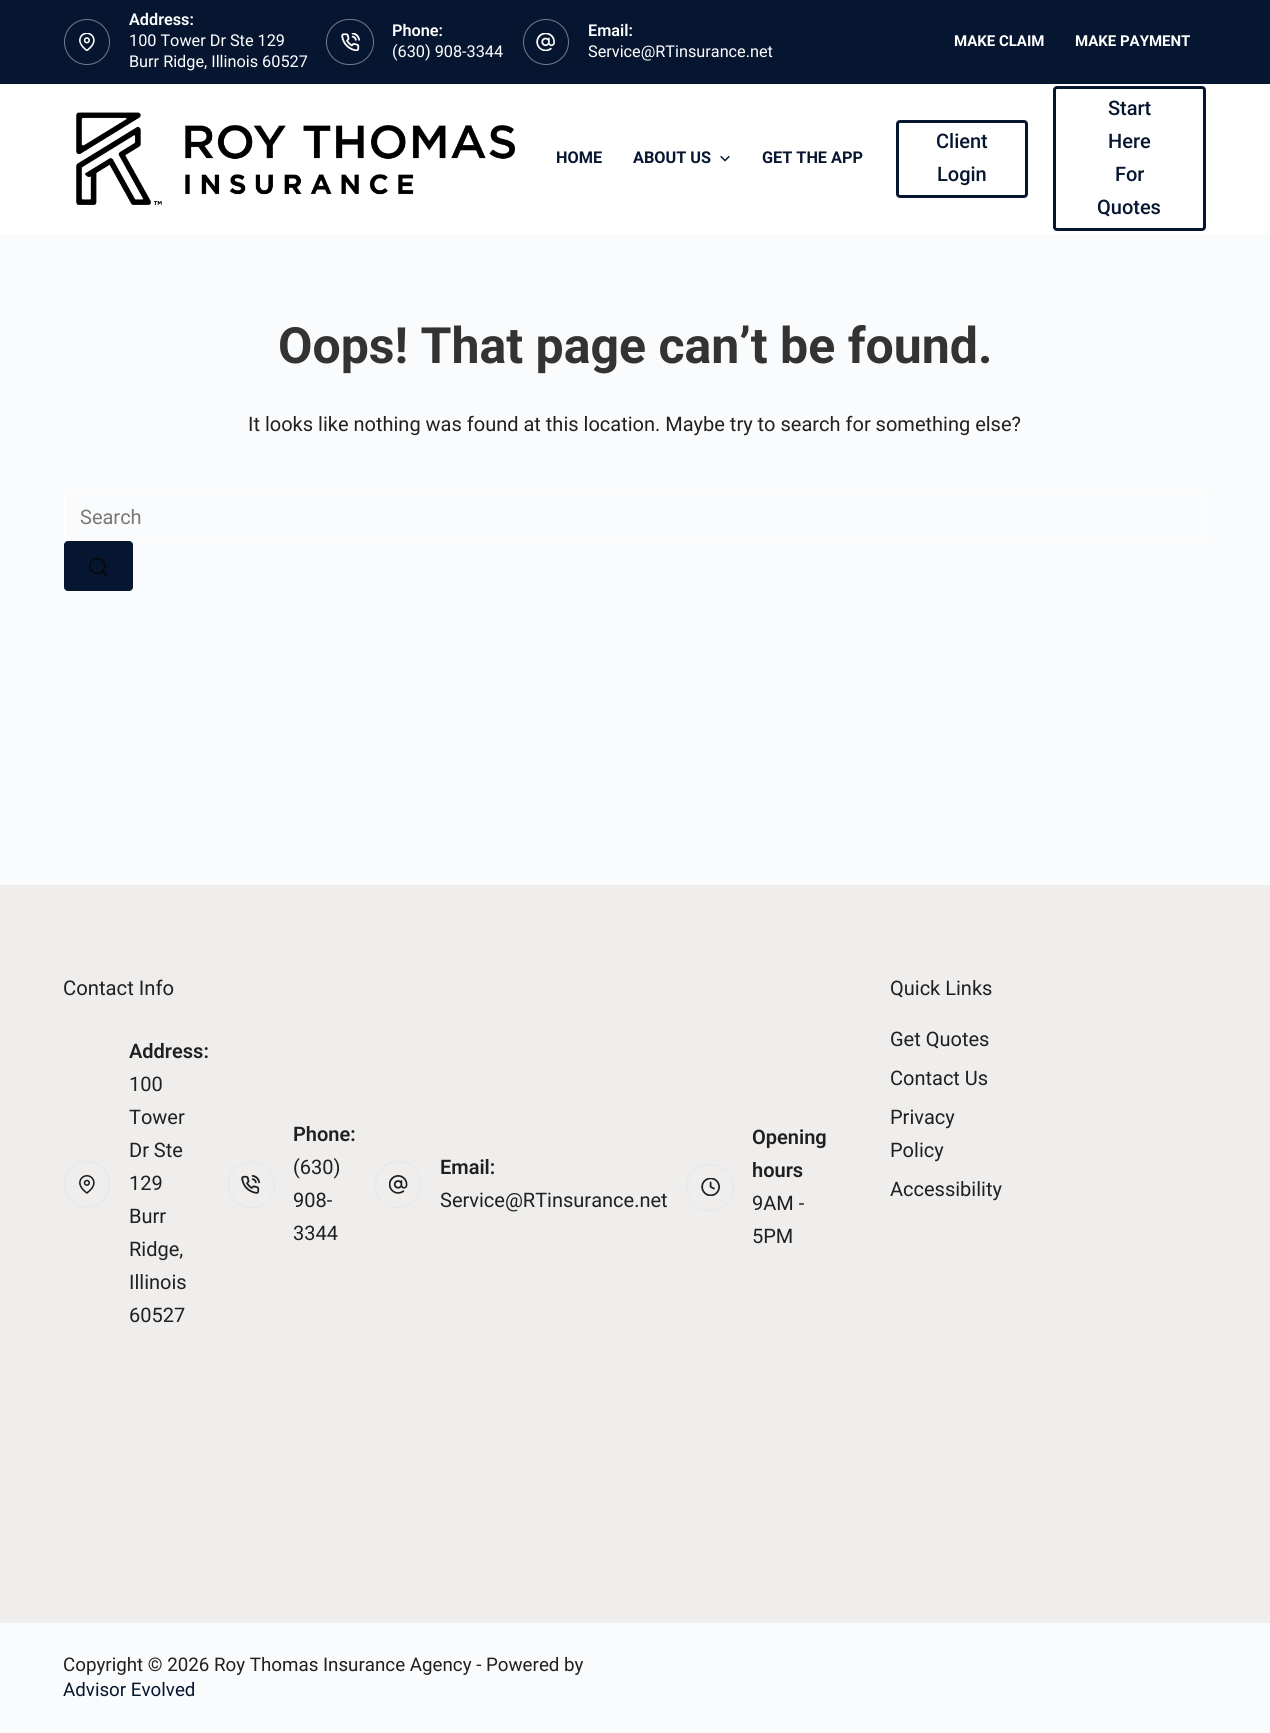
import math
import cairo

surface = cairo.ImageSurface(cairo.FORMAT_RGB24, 1270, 1733)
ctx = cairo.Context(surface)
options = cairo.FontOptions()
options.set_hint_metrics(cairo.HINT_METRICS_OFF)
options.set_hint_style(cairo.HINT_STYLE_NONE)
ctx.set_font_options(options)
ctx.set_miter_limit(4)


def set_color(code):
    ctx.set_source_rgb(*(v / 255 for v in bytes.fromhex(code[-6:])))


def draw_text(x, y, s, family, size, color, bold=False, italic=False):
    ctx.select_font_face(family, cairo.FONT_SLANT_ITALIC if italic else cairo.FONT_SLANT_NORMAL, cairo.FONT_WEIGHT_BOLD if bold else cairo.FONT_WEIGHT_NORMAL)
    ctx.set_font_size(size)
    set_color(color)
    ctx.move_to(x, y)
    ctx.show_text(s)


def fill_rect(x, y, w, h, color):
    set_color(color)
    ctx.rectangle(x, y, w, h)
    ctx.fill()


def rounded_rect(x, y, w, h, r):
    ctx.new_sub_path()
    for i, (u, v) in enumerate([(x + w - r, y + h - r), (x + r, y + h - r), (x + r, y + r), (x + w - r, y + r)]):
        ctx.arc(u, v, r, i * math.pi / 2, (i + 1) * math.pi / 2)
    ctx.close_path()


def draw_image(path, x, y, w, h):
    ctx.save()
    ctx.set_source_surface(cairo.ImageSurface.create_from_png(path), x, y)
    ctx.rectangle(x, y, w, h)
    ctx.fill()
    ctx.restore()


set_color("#fafbfc")
ctx.paint()
fill_rect(0, 0, 1270, 84, "#071630")
ctx.arc(87, 42, 22.5, 0, 2 * math.pi)
set_color("#717a8a")
ctx.set_line_width(1)
ctx.stroke()
draw_image("assets/img1.png", 79, 33, 16, 18)
draw_text(129, 25, "Address:", "Roboto SemiBold", 16.25, "#ffffff")
draw_text(129, 46, "100 Tower Dr Ste 129", "Roboto", 16.25, "#ffffff")
draw_text(129, 67, "Burr Ridge, Illinois 60527", "Roboto", 16.25, "#ffffff")
rounded_rect(326.5, 19.5, 47, 45, 22.5)
set_color("#717a8a")
ctx.stroke()
draw_image("assets/img2.png", 341, 33, 19, 18)
draw_text(392, 36, "Phone:", "Roboto SemiBold", 16.25, "#ffffff")
draw_text(392, 57, "(630) 908-3344", "Roboto", 16.25, "#ffffff")
ctx.new_path()
ctx.arc(546, 42, 22.5, 0, 2 * math.pi)
set_color("#717a8a")
ctx.stroke()
draw_image("assets/img3.png", 536, 33, 19, 18)
draw_text(588, 36, "Email:", "Roboto SemiBold", 16.25, "#ffffff")
draw_text(588, 57, "Service@RTinsurance.net", "Roboto", 16.25, "#ffffff")
draw_text(954, 46, "MAKE CLAIM", "Roboto", 15, "#ffffff", bold=True)
draw_text(1075, 46, "MAKE PAYMENT", "Roboto", 15, "#ffffff", bold=True)
fill_rect(0, 84, 1270, 150, "#ffffff")
draw_image("assets/img4.png", 76, 112, 439, 93)
draw_text(556, 163, "HOME", "Roboto", 16.25, "#071630", bold=True)
draw_text(633, 163, "ABOUT US", "Roboto", 16.25, "#071630", bold=True)
draw_image("assets/img5.png", 720, 156, 10, 6)
draw_text(762, 163, "GET THE APP", "Roboto", 16.25, "#071630", bold=True)
rounded_rect(897.5, 121.5, 129, 75, 2.5)
ctx.set_line_width(3)
ctx.stroke()
draw_text(936, 148, "Client", "Roboto Medium", 20, "#071630")
draw_text(937, 181, "Login", "Roboto Medium", 20, "#071630")
rounded_rect(1054.5, 87.5, 150, 142, 2.5)
ctx.stroke()
draw_text(1108, 115, "Start", "Roboto Medium", 20, "#071630")
draw_text(1108, 148, "Here", "Roboto Medium", 20, "#071630")
draw_text(1115, 181, "For", "Roboto Medium", 20, "#071630")
draw_text(1097, 214, "Quotes", "Roboto Medium", 20, "#071630")
draw_text(278, 363, "Oops! That page can’t be found.", "Roboto", 50, "#333333", bold=True)
draw_text(248, 431, "It looks like nothing was found at this location. Maybe try to search for something else?", "Roboto", 20, "#202020")
rounded_rect(64.5, 491.5, 1141, 49, 3.5)
set_color("#ffffff")
ctx.set_line_width(1)
ctx.stroke()
draw_text(80, 524, "Search", "Roboto", 20, "#787879")
set_color("#071630")
rounded_rect(64, 541, 69, 50, 4)
ctx.fill()
draw_image("assets/img6.png", 89, 558, 19, 18)
fill_rect(0, 885, 1270, 738, "#efeeed")
draw_text(63, 995, "Contact Info", "Roboto", 20.25, "#202020")
rounded_rect(64.5, 1161.5, 45, 46, 22.5)
set_color("#e5e6e9")
ctx.stroke()
draw_image("assets/img7.png", 79, 1175, 16, 19)
draw_text(129, 1058, "Address:", "Roboto SemiBold", 20, "#202020")
draw_text(129, 1091, "100", "Roboto", 20, "#202020")
draw_text(129, 1124, "Tower", "Roboto", 20, "#202020")
draw_text(129, 1157, "Dr Ste", "Roboto", 20, "#202020")
draw_text(129, 1190, "129", "Roboto", 20, "#202020")
draw_text(129, 1223, "Burr", "Roboto", 20, "#202020")
draw_text(129, 1256, "Ridge,", "Roboto", 20, "#202020")
draw_text(129, 1289, "Illinois", "Roboto", 20, "#202020")
draw_text(129, 1322, "60527", "Roboto", 20, "#202020")
ctx.new_path()
ctx.arc(251.5, 1184.5, 23, 0, 2 * math.pi)
set_color("#e5e6e9")
ctx.stroke()
draw_image("assets/img8.png", 241, 1175, 19, 19)
draw_text(293, 1141, "Phone:", "Roboto SemiBold", 20, "#202020")
draw_text(293, 1174, "(630)", "Roboto", 20, "#202020")
draw_text(293, 1207, "908-", "Roboto", 20, "#202020")
draw_text(293, 1240, "3344", "Roboto", 20, "#202020")
rounded_rect(375.5, 1161.5, 45, 46, 22.5)
set_color("#e5e6e9")
ctx.stroke()
draw_image("assets/img9.png", 389, 1175, 19, 19)
draw_text(440, 1174, "Email:", "Roboto SemiBold", 20, "#202020")
draw_text(440, 1207, "Service@RTinsurance.net", "Roboto", 20, "#202020")
rounded_rect(686.5, 1164.5, 47, 46, 23)
set_color("#e5e6e9")
ctx.stroke()
draw_image("assets/img10.png", 701, 1178, 19, 18)
draw_text(752, 1144, "Opening", "Roboto SemiBold", 20, "#202020")
draw_text(752, 1177, "hours", "Roboto SemiBold", 20, "#202020")
draw_text(752, 1210, "9AM -", "Roboto", 20, "#202020")
draw_text(752, 1243, "5PM", "Roboto", 20, "#202020")
draw_text(890, 995, "Quick Links", "Roboto", 20, "#202020")
draw_text(890, 1046, "Get Quotes", "Roboto", 20, "#202020")
draw_text(890, 1085, "Contact Us", "Roboto", 20, "#202020")
draw_text(890, 1124, "Privacy", "Roboto", 20, "#202020")
draw_text(890, 1157, "Policy", "Roboto", 20, "#202020")
draw_text(890, 1196, "Accessibility", "Roboto", 20, "#202020")
draw_text(63, 1671, "Copyright © 2026 Roy Thomas Insurance Agency - Powered by", "Roboto", 18.75, "#202020")
draw_text(63, 1696, "Advisor Evolved", "Roboto", 18.75, "#071630")
surface.write_to_png("output.png")
